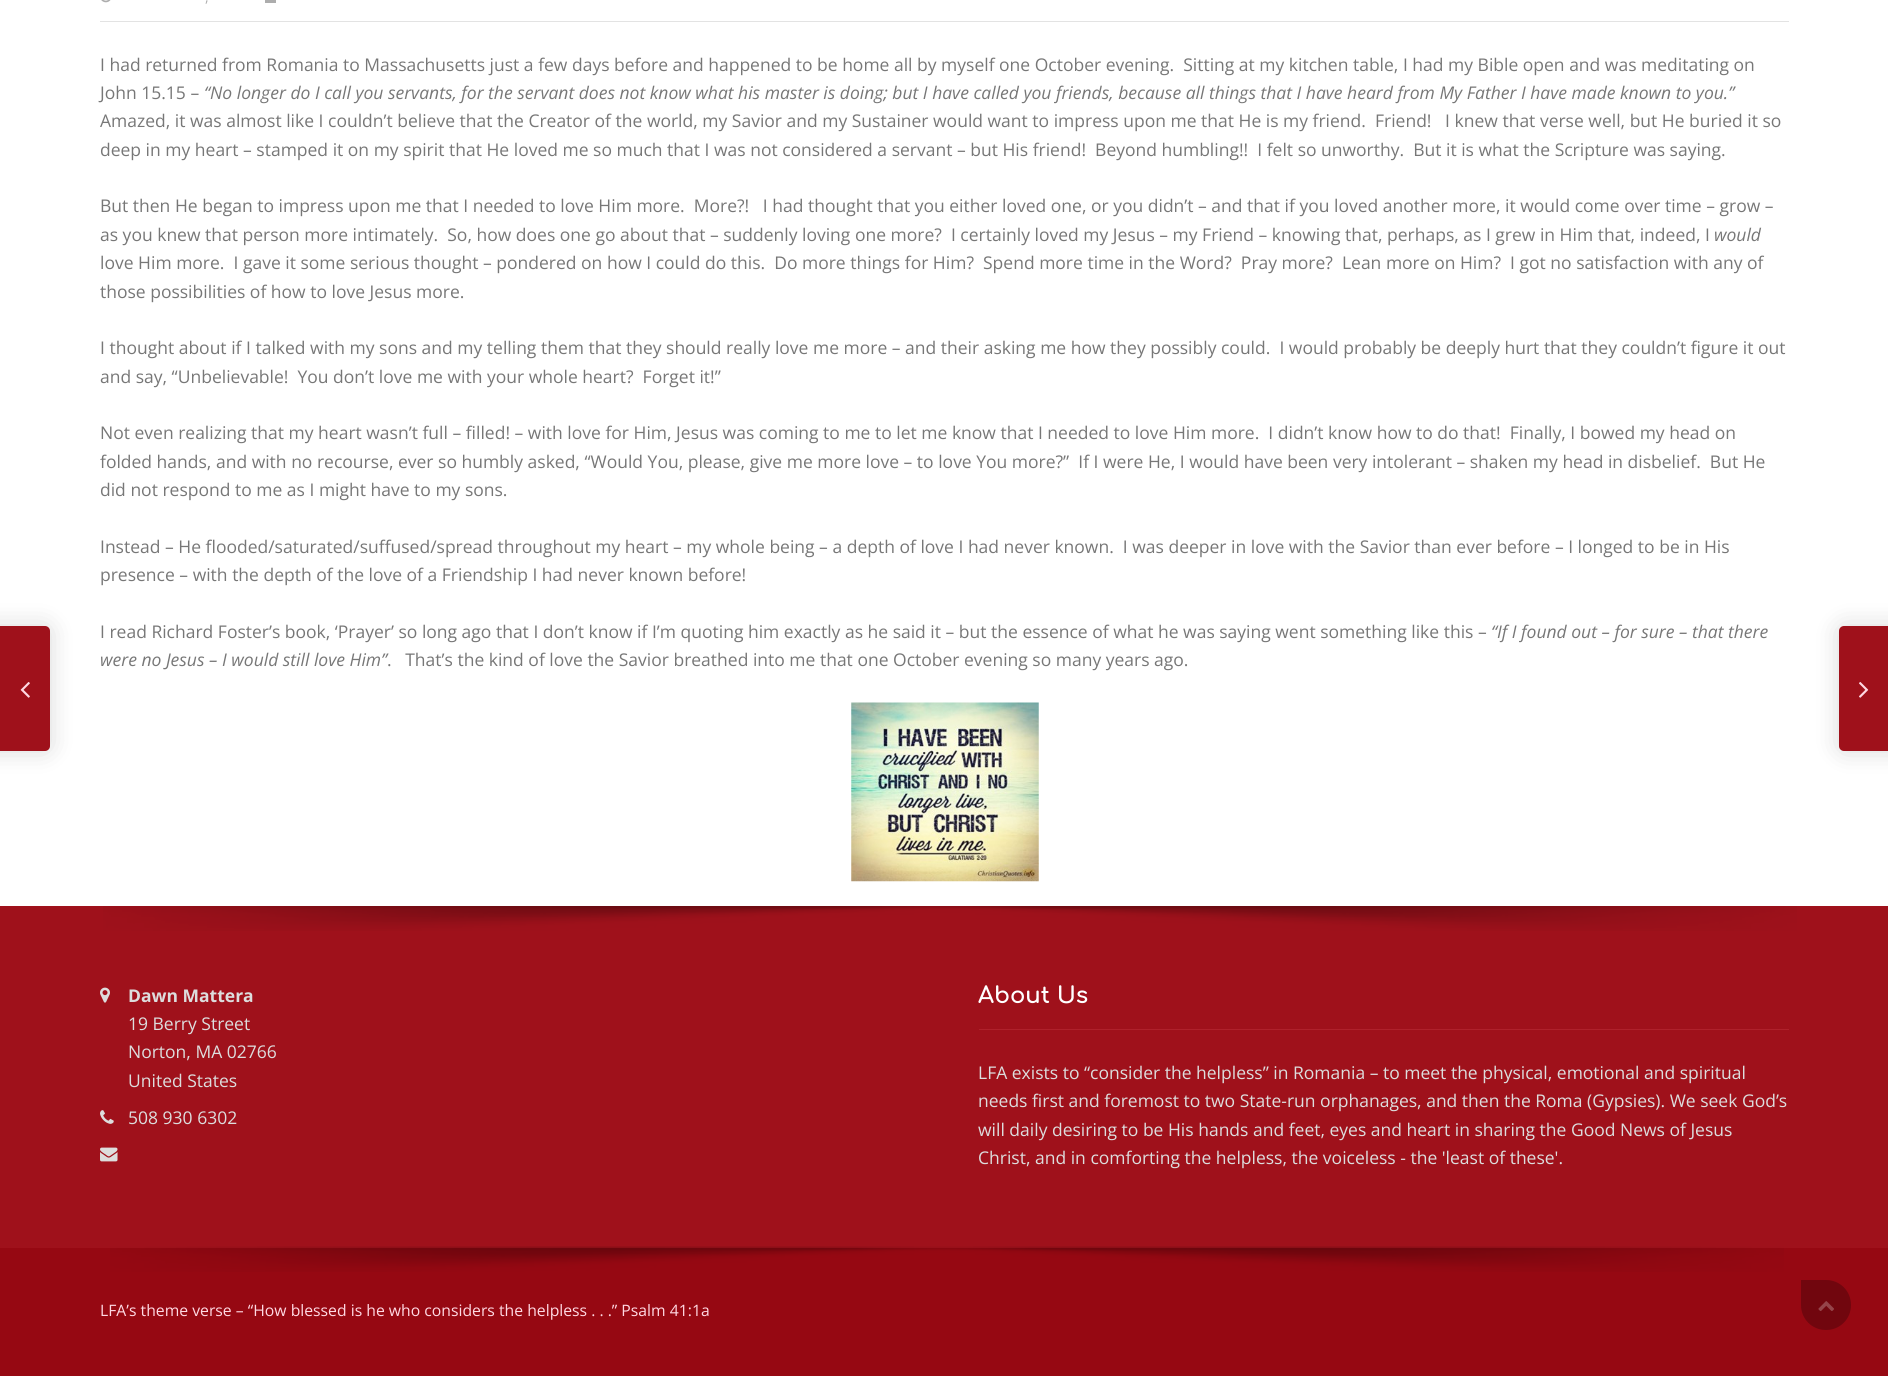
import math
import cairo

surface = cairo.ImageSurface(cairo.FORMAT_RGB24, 1888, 1376)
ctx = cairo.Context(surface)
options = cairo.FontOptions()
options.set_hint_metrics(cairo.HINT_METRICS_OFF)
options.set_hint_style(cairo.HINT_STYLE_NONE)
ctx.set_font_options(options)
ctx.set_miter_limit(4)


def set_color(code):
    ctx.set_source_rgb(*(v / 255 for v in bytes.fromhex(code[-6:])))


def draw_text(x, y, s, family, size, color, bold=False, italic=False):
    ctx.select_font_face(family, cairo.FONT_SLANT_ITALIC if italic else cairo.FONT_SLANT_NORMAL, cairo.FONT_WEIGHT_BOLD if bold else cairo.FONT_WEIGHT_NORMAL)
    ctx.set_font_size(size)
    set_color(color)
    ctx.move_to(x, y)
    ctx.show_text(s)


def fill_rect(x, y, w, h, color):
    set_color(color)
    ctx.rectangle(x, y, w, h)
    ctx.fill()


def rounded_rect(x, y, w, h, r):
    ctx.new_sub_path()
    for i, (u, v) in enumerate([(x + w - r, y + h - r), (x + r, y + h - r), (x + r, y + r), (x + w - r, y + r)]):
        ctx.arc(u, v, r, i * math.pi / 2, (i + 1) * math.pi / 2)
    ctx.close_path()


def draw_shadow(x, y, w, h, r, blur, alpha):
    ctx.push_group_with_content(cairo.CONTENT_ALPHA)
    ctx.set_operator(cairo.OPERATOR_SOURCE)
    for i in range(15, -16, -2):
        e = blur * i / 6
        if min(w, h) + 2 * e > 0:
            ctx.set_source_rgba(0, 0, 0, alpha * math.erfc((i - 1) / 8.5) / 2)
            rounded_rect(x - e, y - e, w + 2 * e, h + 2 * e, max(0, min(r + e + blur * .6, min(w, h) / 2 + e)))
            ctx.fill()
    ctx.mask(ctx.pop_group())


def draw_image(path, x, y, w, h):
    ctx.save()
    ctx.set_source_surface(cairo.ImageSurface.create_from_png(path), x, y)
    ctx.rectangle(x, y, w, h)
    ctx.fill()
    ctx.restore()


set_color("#ffffff")
ctx.paint()
fill_rect(100, 21, 1689, 1, "#e3e3e3")
draw_image("assets/img1.png", 101, 0, 10, 3)
draw_text(205, 2, ",", "Open Sans", 14, "#adadad")
fill_rect(265, 0, 11, 3, "#adadad")
draw_text(100, 71, "I had returned from Romania to Massachusetts just a few days before and happened to be home all by myself one October evening.  Sitting at my kitchen table, I had my Bible open and was meditating on", "Open Sans", 17.5, "#777777")
draw_text(100, 99, "John 15.15 –", "Open Sans", 17.5, "#777777")
draw_text(204, 99, "“No longer do I call you servants, for the servant does not know what his master is doing; but I have called you friends, because all things that I have heard from My Father I have made known to you.”", "Open Sans", 17.5, "#777777", italic=True)
draw_text(100, 127, "Amazed, it was almost like I couldn’t believe that the Creator of the world, my Savior and my Sustainer would want to impress upon me that He is my friend.  Friend!   I knew that verse well, but He buried it so", "Open Sans", 17.5, "#777777")
draw_text(100, 156, "deep in my heart – stamped it on my spirit that He loved me so much that I was not considered a servant – but His friend!  Beyond humbling!!  I felt so unworthy.  But it is what the Scripture was saying.", "Open Sans", 17.5, "#777777")
draw_text(100, 212, "But then He began to impress upon me that I needed to love Him more.  More?!   I had thought that you either loved one, or you didn’t – and that if you loved another more, it would come over time – grow –", "Open Sans", 17.5, "#777777")
draw_text(100, 241, "as you knew that person more intimately.  So, how does one go about that – suddenly loving one more?  I certainly loved my Jesus – my Friend – knowing that, perhaps, as I grew in Him that, indeed, I", "Open Sans", 17.5, "#777777")
draw_text(1714, 241, "would", "Open Sans", 17.5, "#777777", italic=True)
draw_text(100, 269, "love Him more.  I gave it some serious thought – pondered on how I could do this.  Do more things for Him?  Spend more time in the Word?  Pray more?  Lean more on Him?  I got no satisfaction with any of", "Open Sans", 17.5, "#777777")
draw_text(100, 298, "those possibilities of how to love Jesus more.", "Open Sans", 17.5, "#777777")
draw_text(100, 354, "I thought about if I talked with my sons and my telling them that they should really love me more – and their asking me how they possibly could.  I would probably be deeply hurt that they couldn’t figure it out", "Open Sans", 17.5, "#777777")
draw_text(100, 383, "and say, “Unbelievable!  You don’t love me with your whole heart?  Forget it!”", "Open Sans", 17.5, "#777777")
draw_text(100, 439, "Not even realizing that my heart wasn’t full – filled! – with love for Him, Jesus was coming to me to let me know that I needed to love Him more.  I didn’t know how to do that!  Finally, I bowed my head on", "Open Sans", 17.5, "#777777")
draw_text(100, 468, "folded hands, and with no recourse, ever so humbly asked, “Would You, please, give me more love – to love You more?”  If I were He, I would have been very intolerant – shaken my head in disbelief.  But He", "Open Sans", 17.5, "#777777")
draw_text(100, 496, "did not respond to me as I might have to my sons.", "Open Sans", 17.5, "#777777")
draw_text(100, 553, "Instead – He flooded/saturated/suffused/spread throughout my heart – my whole being – a depth of love I had never known.  I was deeper in love with the Savior than ever before – I longed to be in His", "Open Sans", 17.5, "#777777")
draw_text(100, 581, "presence – with the depth of the love of a Friendship I had never known before!", "Open Sans", 17.5, "#777777")
draw_text(100, 638, "I read Richard Foster’s book, ‘Prayer’ so long ago that I don’t know if I’m quoting him exactly as he said it – but the essence of what he was saying went something like this –", "Open Sans", 17.5, "#777777")
draw_text(1491, 638, "“If I found out – for sure – that there", "Open Sans", 17.5, "#777777", italic=True)
draw_text(100, 666, "were no Jesus – I would still love Him”", "Open Sans", 17.5, "#777777", italic=True)
draw_text(387, 666, ".   That’s the kind of love the Savior breathed into me that one October evening so many years ago.", "Open Sans", 17.5, "#777777")
draw_image("assets/img2.png", 851, 702, 188, 180)
set_color("#000000")
draw_shadow(-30, 626, 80, 125, 5, 12.5, 0.15)
set_color("#9f111b")
rounded_rect(-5, 626, 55, 125, 5)
ctx.fill()
draw_image("assets/img3.png", 20, 682, 10, 16)
set_color("#000000")
draw_shadow(1839, 626, 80, 125, 5, 12.5, 0.15)
set_color("#9f111b")
rounded_rect(1839, 626, 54, 125, 5)
ctx.fill()
draw_image("assets/img4.png", 1859, 682, 10, 16)
fill_rect(0, 906, 1888, 342, "#9f111b")
draw_image("assets/img5.png", 103, 906, 1694, 25)
draw_image("assets/img6.png", 100, 987, 10, 16)
draw_text(128, 1002, "Dawn Mattera", "Open Sans", 17.5, "#dddddd", bold=True)
draw_text(128, 1030, "19 Berry Street", "Open Sans", 17.5, "#dddddd")
draw_text(128, 1058, "Norton, MA 02766", "Open Sans", 17.5, "#dddddd")
draw_text(128, 1087, "United States", "Open Sans", 17.5, "#dddddd")
draw_image("assets/img7.png", 100, 1110, 14, 14)
draw_text(128, 1124, "508 930 6302", "Open Sans", 17.5, "#dddddd")
draw_image("assets/img8.png", 100, 1147, 18, 15)
fill_rect(979, 1029, 810, 1, "#af212b")
draw_text(978, 1003, "About Us", "Comfortaa", 22.75, "#ffffff", bold=True)
draw_text(978, 1079, "LFA exists to “consider the helpless” in Romania – to meet the physical, emotional and spiritual", "Open Sans", 17.5, "#dddddd")
draw_text(978, 1107, "needs first and foremost to two State-run orphanages, and then the Roma (Gypsies). We seek God’s", "Open Sans", 17.5, "#dddddd")
draw_text(978, 1136, "will daily desiring to be His hands and feet, eyes and heart in sharing the Good News of Jesus", "Open Sans", 17.5, "#dddddd")
draw_text(978, 1164, "Christ, and in comforting the helpless, the voiceless - the 'least of these'.", "Open Sans", 17.5, "#dddddd")
fill_rect(0, 1248, 1888, 128, "#960812")
draw_image("assets/img9.png", 110, 1246, 1674, 26)
draw_text(100, 1316, "LFA’s theme verse – “How blessed is he who considers the helpless . . .” Psalm 41:1a", "Open Sans", 15.75, "#ffd9e3")
set_color("#71060e")
ctx.new_path()
ctx.move_to(1801, 1280)
ctx.line_to(1826, 1280)
ctx.curve_to(1840, 1280, 1851, 1291, 1851, 1305)
ctx.curve_to(1851, 1319, 1840, 1330, 1826, 1330)
ctx.curve_to(1812, 1330, 1801, 1319, 1801, 1305)
ctx.close_path()
ctx.fill()
draw_image("assets/img10.png", 1818, 1301, 16, 10)
surface.write_to_png("output.png")
